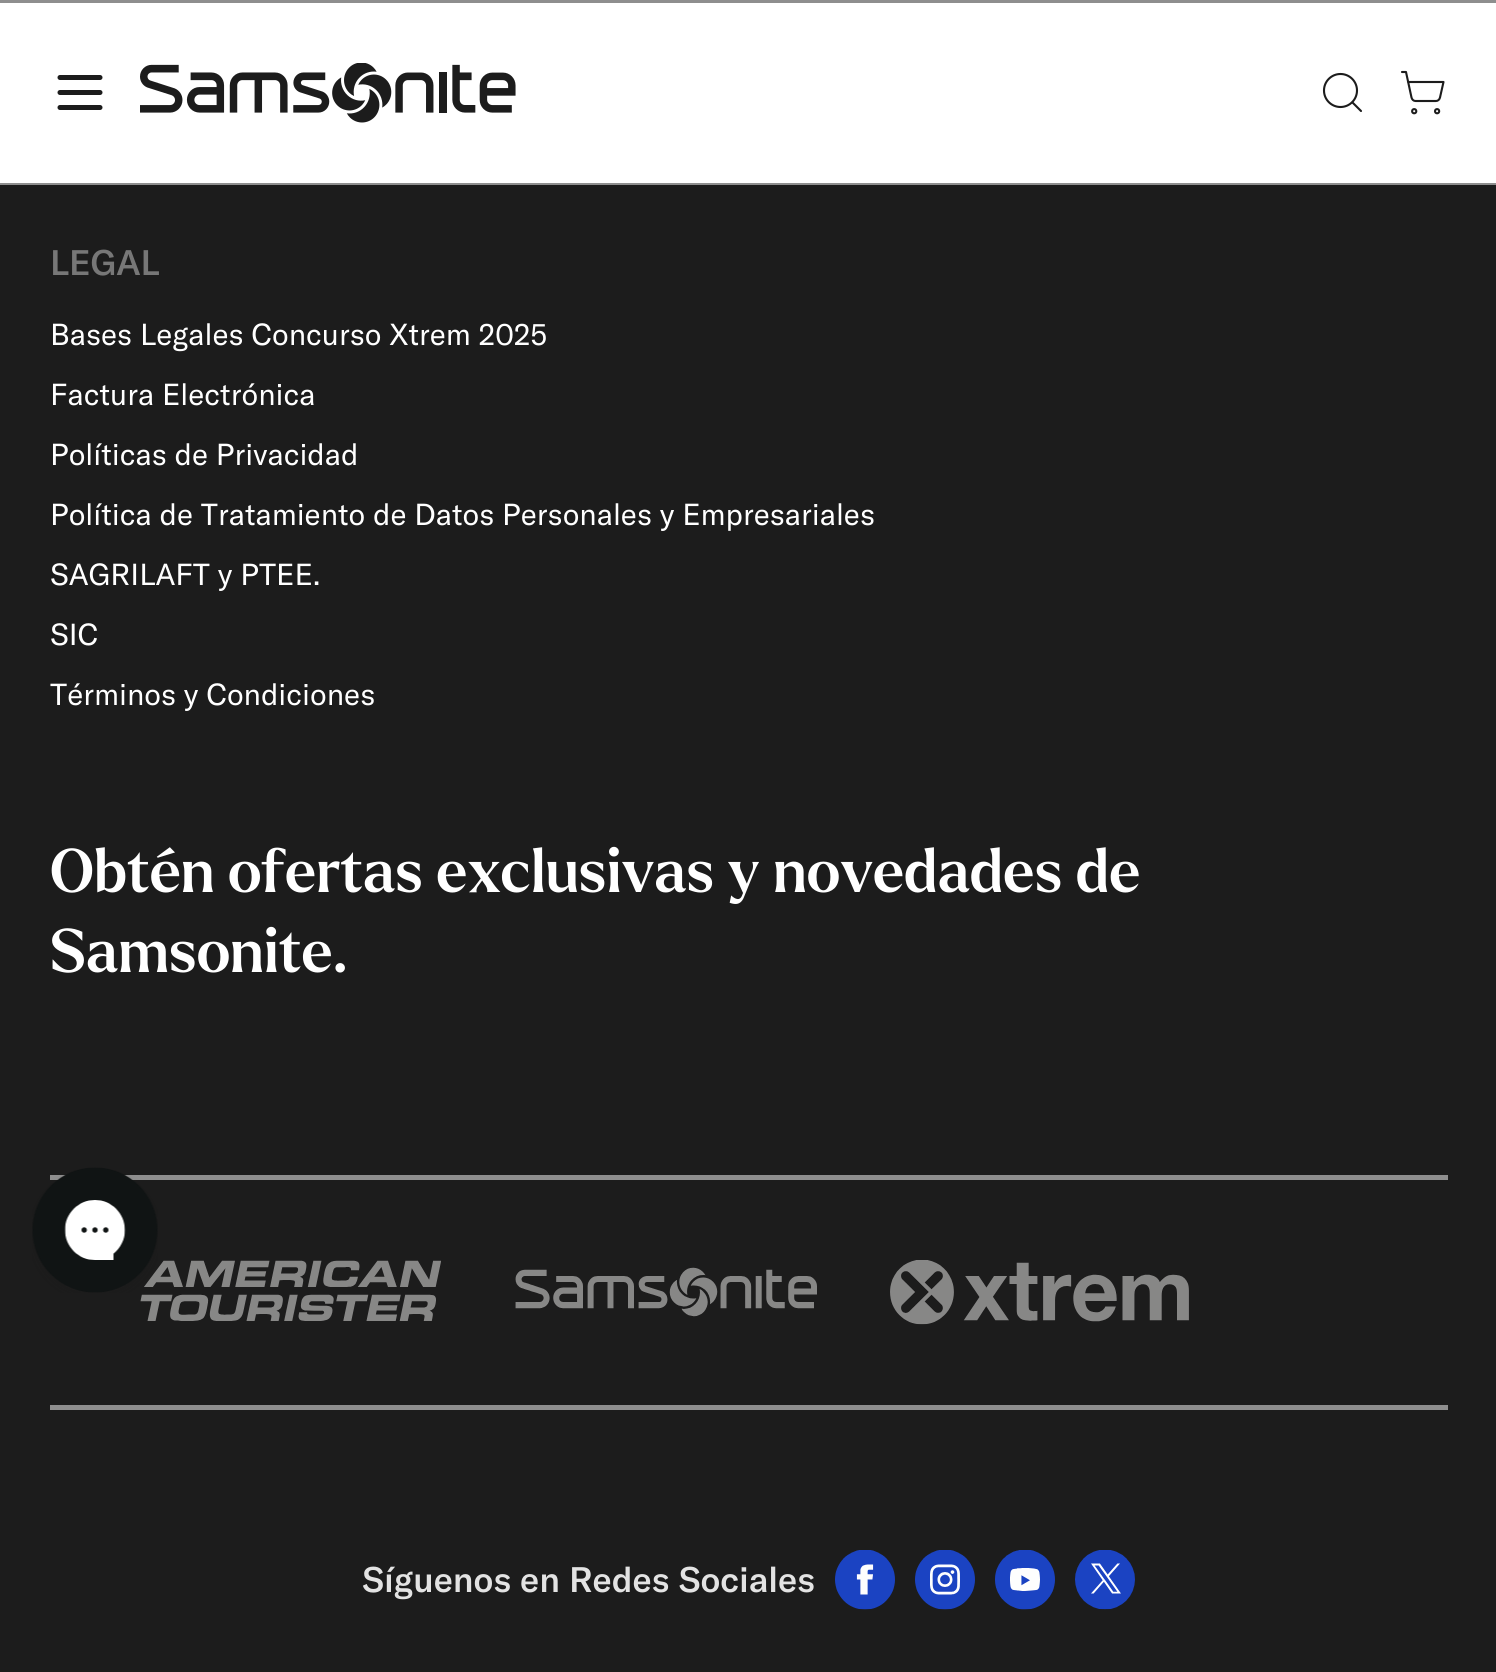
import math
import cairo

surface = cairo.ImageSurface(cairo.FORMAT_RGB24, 1496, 1672)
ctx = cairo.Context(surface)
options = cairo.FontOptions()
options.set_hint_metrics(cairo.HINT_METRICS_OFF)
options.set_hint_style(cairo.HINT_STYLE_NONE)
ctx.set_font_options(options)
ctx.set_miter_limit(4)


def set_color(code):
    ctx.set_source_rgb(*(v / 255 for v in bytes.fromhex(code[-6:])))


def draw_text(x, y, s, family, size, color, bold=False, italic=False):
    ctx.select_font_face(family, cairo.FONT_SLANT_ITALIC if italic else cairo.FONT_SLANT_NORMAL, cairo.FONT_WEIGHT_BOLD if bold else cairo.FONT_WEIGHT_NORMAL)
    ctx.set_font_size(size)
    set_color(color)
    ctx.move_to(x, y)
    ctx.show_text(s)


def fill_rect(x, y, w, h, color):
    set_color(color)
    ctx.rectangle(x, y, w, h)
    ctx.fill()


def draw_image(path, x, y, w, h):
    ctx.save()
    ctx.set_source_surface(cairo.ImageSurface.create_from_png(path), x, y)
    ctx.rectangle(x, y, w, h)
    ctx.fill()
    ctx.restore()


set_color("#1c1c1c")
ctx.paint()
fill_rect(0, 3, 1496, 180, "#ffffff")
fill_rect(0, 183, 1496, 2, "#8e8e8e")
fill_rect(0, 0, 1496, 3, "#8e8e8e")
ctx.new_path()
ctx.move_to(60, 92.5)
ctx.line_to(100, 92.5)
ctx.move_to(60, 77.5)
ctx.line_to(100, 77.5)
ctx.move_to(60, 107.5)
ctx.line_to(100, 107.5)
set_color("#1c1c1c")
ctx.set_line_width(5)
ctx.set_line_cap(cairo.LINE_CAP_ROUND)
ctx.set_line_join(cairo.LINE_JOIN_ROUND)
ctx.stroke()
draw_image("assets/img1.png", 140, 63, 376, 60)
ctx.arc(1340.5, 90.5, 16.5, 0, 2 * math.pi)
ctx.set_line_width(2.1)
ctx.set_line_cap(cairo.LINE_CAP_BUTT)
ctx.set_line_join(cairo.LINE_JOIN_MITER)
ctx.stroke()
ctx.new_path()
ctx.move_to(1361, 111)
ctx.line_to(1352.5, 102.5)
ctx.set_line_cap(cairo.LINE_CAP_ROUND)
ctx.set_line_join(cairo.LINE_JOIN_ROUND)
ctx.stroke()
ctx.arc(1414.2, 111.2, 2.1, 0, 2 * math.pi)
ctx.set_line_cap(cairo.LINE_CAP_BUTT)
ctx.set_line_join(cairo.LINE_JOIN_MITER)
ctx.stroke()
ctx.arc(1437.1, 111.2, 2.1, 0, 2 * math.pi)
ctx.stroke()
ctx.new_path()
ctx.move_to(1402, 72)
ctx.line_to(1406, 72)
ctx.line_to(1411.5, 97.5)
ctx.curve_to(1412, 99.5, 1413.5, 101, 1415.5, 101)
ctx.line_to(1436, 101)
ctx.curve_to(1438, 101, 1439.5, 99.5, 1440, 97.5)
ctx.line_to(1443.5, 82)
ctx.line_to(1408, 82)
ctx.set_line_cap(cairo.LINE_CAP_ROUND)
ctx.set_line_join(cairo.LINE_JOIN_ROUND)
ctx.stroke()
draw_text(50, 275, "LEGAL", "GT America Medium", 35, "#777777")
draw_text(50, 345, "Bases Legales Concurso Xtrem 2025", "GT America", 30, "#ffffff")
draw_text(50, 405, "Factura Electrónica", "GT America", 30, "#ffffff")
draw_text(50, 465, "Políticas de Privacidad", "GT America", 30, "#ffffff")
draw_text(50, 525, "Política de Tratamiento de Datos Personales y Empresariales", "GT America", 30, "#ffffff")
draw_text(50, 585, "SAGRILAFT y PTEE.", "GT America", 30, "#ffffff")
draw_text(50, 645, "SIC", "GT America", 30, "#ffffff")
draw_text(50, 705, "Términos y Condiciones", "GT America", 30, "#ffffff")
draw_text(50, 892, "Obtén ofertas exclusivas y novedades de", "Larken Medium", 60, "#ffffff")
draw_text(50, 972, "Samsonite.", "Larken Medium", 60, "#ffffff")
fill_rect(50, 1175, 1398, 5, "#8e8e8e")
fill_rect(50, 1405, 1398, 5, "#8e8e8e")
draw_image("assets/img2.png", 140, 1260, 301, 61)
draw_image("assets/img3.png", 515, 1267, 302, 50)
draw_image("assets/img4.png", 890, 1260, 299, 65)
draw_text(362, 1592, "Síguenos en Redes Sociales", "GT America Medium", 35, "#e3e3e3")
draw_image("assets/img5.png", 835, 1550, 60, 60)
draw_image("assets/img6.png", 915, 1550, 60, 60)
draw_image("assets/img7.png", 995, 1550, 60, 60)
draw_image("assets/img8.png", 1075, 1550, 60, 60)
draw_image("assets/img9.png", 32, 1167, 126, 126)
surface.write_to_png("output.png")
